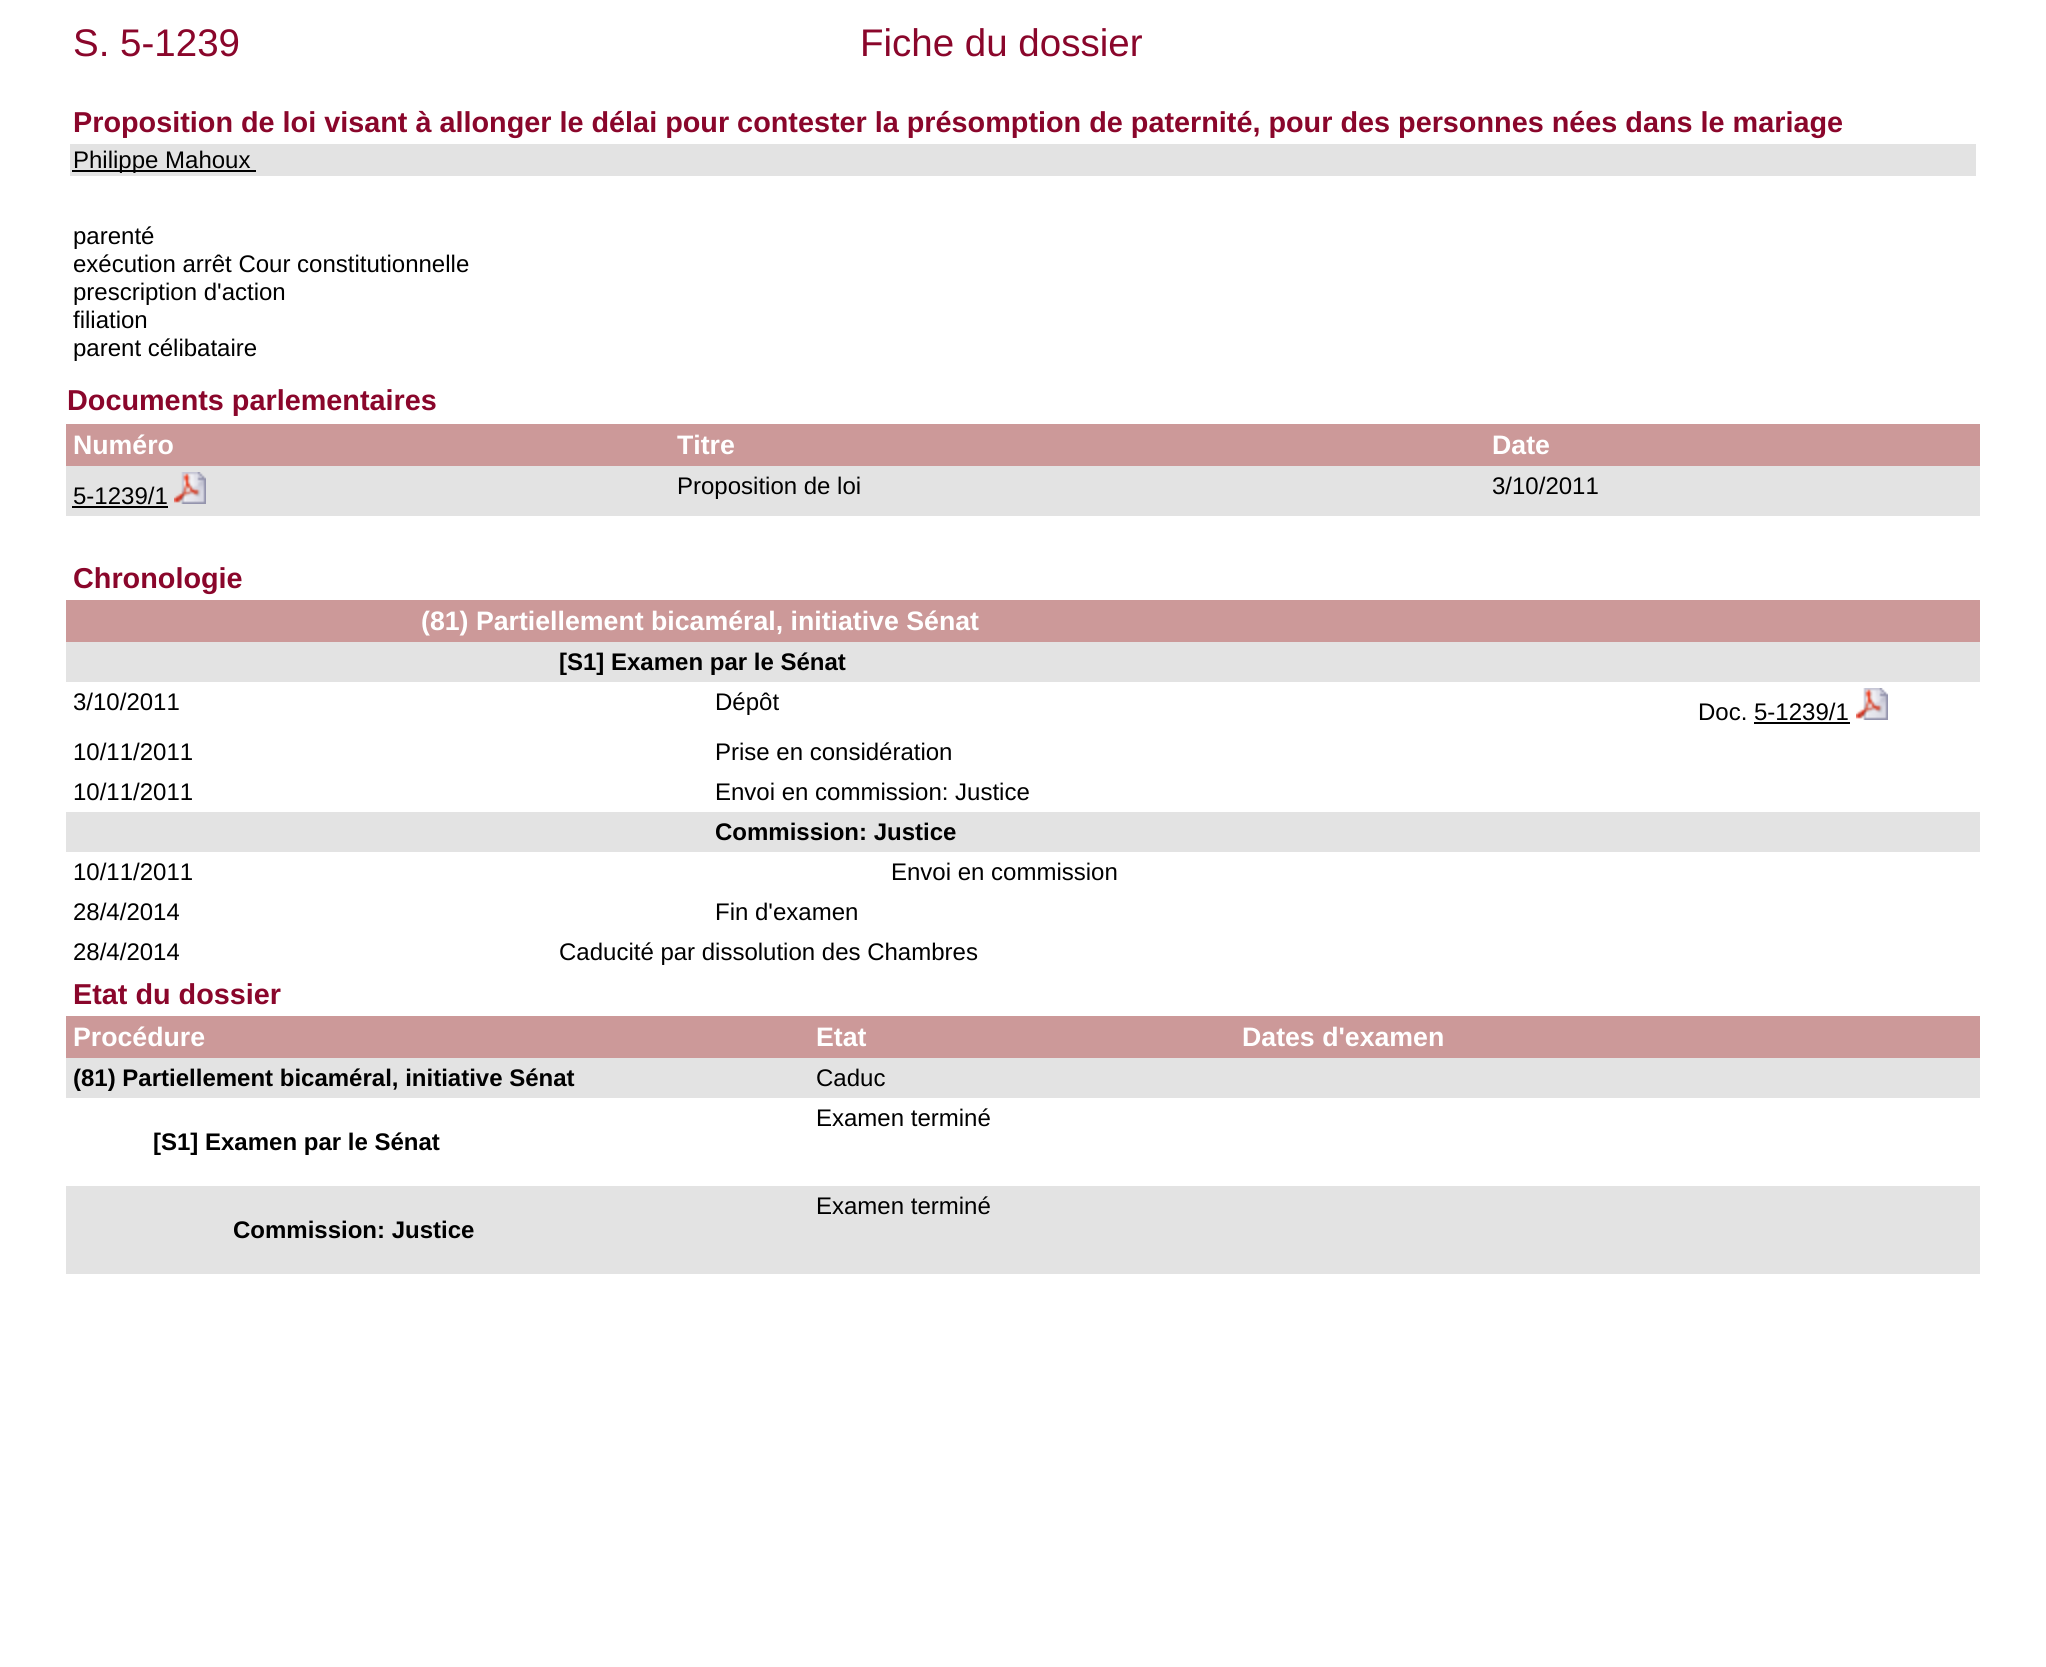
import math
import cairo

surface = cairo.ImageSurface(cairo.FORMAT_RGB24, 2046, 1667)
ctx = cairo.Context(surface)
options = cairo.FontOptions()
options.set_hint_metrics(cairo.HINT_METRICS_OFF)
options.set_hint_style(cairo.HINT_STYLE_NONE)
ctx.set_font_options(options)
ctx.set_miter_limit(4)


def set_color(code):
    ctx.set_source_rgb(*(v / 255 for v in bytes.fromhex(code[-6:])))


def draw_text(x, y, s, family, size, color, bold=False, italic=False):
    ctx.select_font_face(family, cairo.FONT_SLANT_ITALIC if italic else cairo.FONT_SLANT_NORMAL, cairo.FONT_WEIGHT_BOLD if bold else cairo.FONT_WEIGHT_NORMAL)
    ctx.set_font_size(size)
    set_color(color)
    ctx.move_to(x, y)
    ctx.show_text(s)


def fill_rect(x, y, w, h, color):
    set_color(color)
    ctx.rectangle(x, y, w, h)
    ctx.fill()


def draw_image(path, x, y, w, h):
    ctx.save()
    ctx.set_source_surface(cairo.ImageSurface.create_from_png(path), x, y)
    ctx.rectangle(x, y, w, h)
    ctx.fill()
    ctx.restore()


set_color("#ffffff")
ctx.paint()
draw_text(73, 56, "S. 5-1239", "Liberation Sans", 38.5, "#8a062b")
draw_text(860, 56, "Fiche du dossier", "Liberation Sans", 38.5, "#8a062b")
draw_text(73, 132, "Proposition de loi visant à allonger le délai pour contester la présomption de paternité, pour des personnes nées dans le mariage", "Liberation Sans", 28.8, "#8a062b", bold=True)
fill_rect(70, 144, 1906, 32, "#e3e3e3")
fill_rect(72, 170, 184, 2, "#000000")
draw_text(73, 168, "Philippe Mahoux", "Liberation Sans", 24, "#000000")
draw_text(73, 244, "parenté", "Liberation Sans", 24, "#000000")
draw_text(73, 272, "exécution arrêt Cour constitutionnelle", "Liberation Sans", 24, "#000000")
draw_text(73, 300, "prescription d'action", "Liberation Sans", 24, "#000000")
draw_text(73, 328, "filiation", "Liberation Sans", 24, "#000000")
draw_text(73, 356, "parent célibataire", "Liberation Sans", 24, "#000000")
draw_text(67, 410, "Documents parlementaires", "Liberation Sans", 28.8, "#8a062b", bold=True)
fill_rect(66, 424, 1914, 42, "#cc9999")
draw_text(73, 454, "Numéro", "Liberation Sans", 26.7, "#ffffff", bold=True)
draw_text(677, 454, "Titre", "Liberation Sans", 26.7, "#ffffff", bold=True)
draw_text(1492, 454, "Date", "Liberation Sans", 26.7, "#ffffff", bold=True)
fill_rect(66, 466, 1914, 50, "#e3e3e3")
draw_text(73, 504, "5-1239/1", "Liberation Sans", 24, "#000000")
fill_rect(72, 506, 96, 2, "#000000")
draw_image("assets/img1.png", 174, 472, 32, 32)
draw_text(677, 494, "Proposition de loi", "Liberation Sans", 24, "#000000")
draw_text(1492, 494, "3/10/2011", "Liberation Sans", 24, "#000000")
draw_text(73, 588, "Chronologie", "Liberation Sans", 28.8, "#8a062b", bold=True)
fill_rect(66, 600, 1914, 42, "#cc9999")
draw_text(421, 630, "(81) Partiellement bicaméral, initiative Sénat", "Liberation Sans", 26.7, "#ffffff", bold=True)
fill_rect(66, 642, 1914, 40, "#e3e3e3")
draw_text(559, 670, "[S1] Examen par le Sénat", "Liberation Sans", 24, "#000000", bold=True)
draw_text(73, 710, "3/10/2011", "Liberation Sans", 24, "#000000")
draw_text(715, 710, "Dépôt", "Liberation Sans", 24, "#000000")
draw_text(1698, 720, "Doc. 5-1239/1", "Liberation Sans", 24, "#000000")
draw_image("assets/img2.png", 1856, 688, 32, 32)
fill_rect(1754, 722, 96, 2, "#000000")
draw_text(73, 760, "10/11/2011", "Liberation Sans", 24, "#000000")
draw_text(715, 760, "Prise en considération", "Liberation Sans", 24, "#000000")
draw_text(73, 800, "10/11/2011", "Liberation Sans", 24, "#000000")
draw_text(715, 800, "Envoi en commission: Justice", "Liberation Sans", 24, "#000000")
fill_rect(66, 812, 1914, 40, "#e3e3e3")
draw_text(715, 840, "Commission: Justice", "Liberation Sans", 24, "#000000", bold=True)
draw_text(73, 880, "10/11/2011", "Liberation Sans", 24, "#000000")
draw_text(891, 880, "Envoi en commission", "Liberation Sans", 24, "#000000")
draw_text(73, 920, "28/4/2014", "Liberation Sans", 24, "#000000")
draw_text(715, 920, "Fin d'examen", "Liberation Sans", 24, "#000000")
draw_text(73, 960, "28/4/2014", "Liberation Sans", 24, "#000000")
draw_text(559, 960, "Caducité par dissolution des Chambres", "Liberation Sans", 24, "#000000")
draw_text(73, 1004, "Etat du dossier", "Liberation Sans", 28.8, "#8a062b", bold=True)
fill_rect(66, 1016, 1914, 42, "#cc9999")
draw_text(73, 1046, "Procédure", "Liberation Sans", 26.7, "#ffffff", bold=True)
draw_text(816, 1046, "Etat", "Liberation Sans", 26.7, "#ffffff", bold=True)
draw_text(1242, 1046, "Dates d'examen", "Liberation Sans", 26.7, "#ffffff", bold=True)
fill_rect(66, 1058, 1914, 40, "#e3e3e3")
draw_text(73, 1086, "(81) Partiellement bicaméral, initiative Sénat", "Liberation Sans", 24, "#000000", bold=True)
draw_text(816, 1086, "Caduc", "Liberation Sans", 24, "#000000")
draw_text(816, 1126, "Examen terminé", "Liberation Sans", 24, "#000000")
draw_text(153, 1150, "[S1] Examen par le Sénat", "Liberation Sans", 24, "#000000", bold=True)
fill_rect(66, 1186, 1914, 88, "#e3e3e3")
draw_text(816, 1214, "Examen terminé", "Liberation Sans", 24, "#000000")
draw_text(233, 1238, "Commission: Justice", "Liberation Sans", 24, "#000000", bold=True)
surface.write_to_png("output.png")
